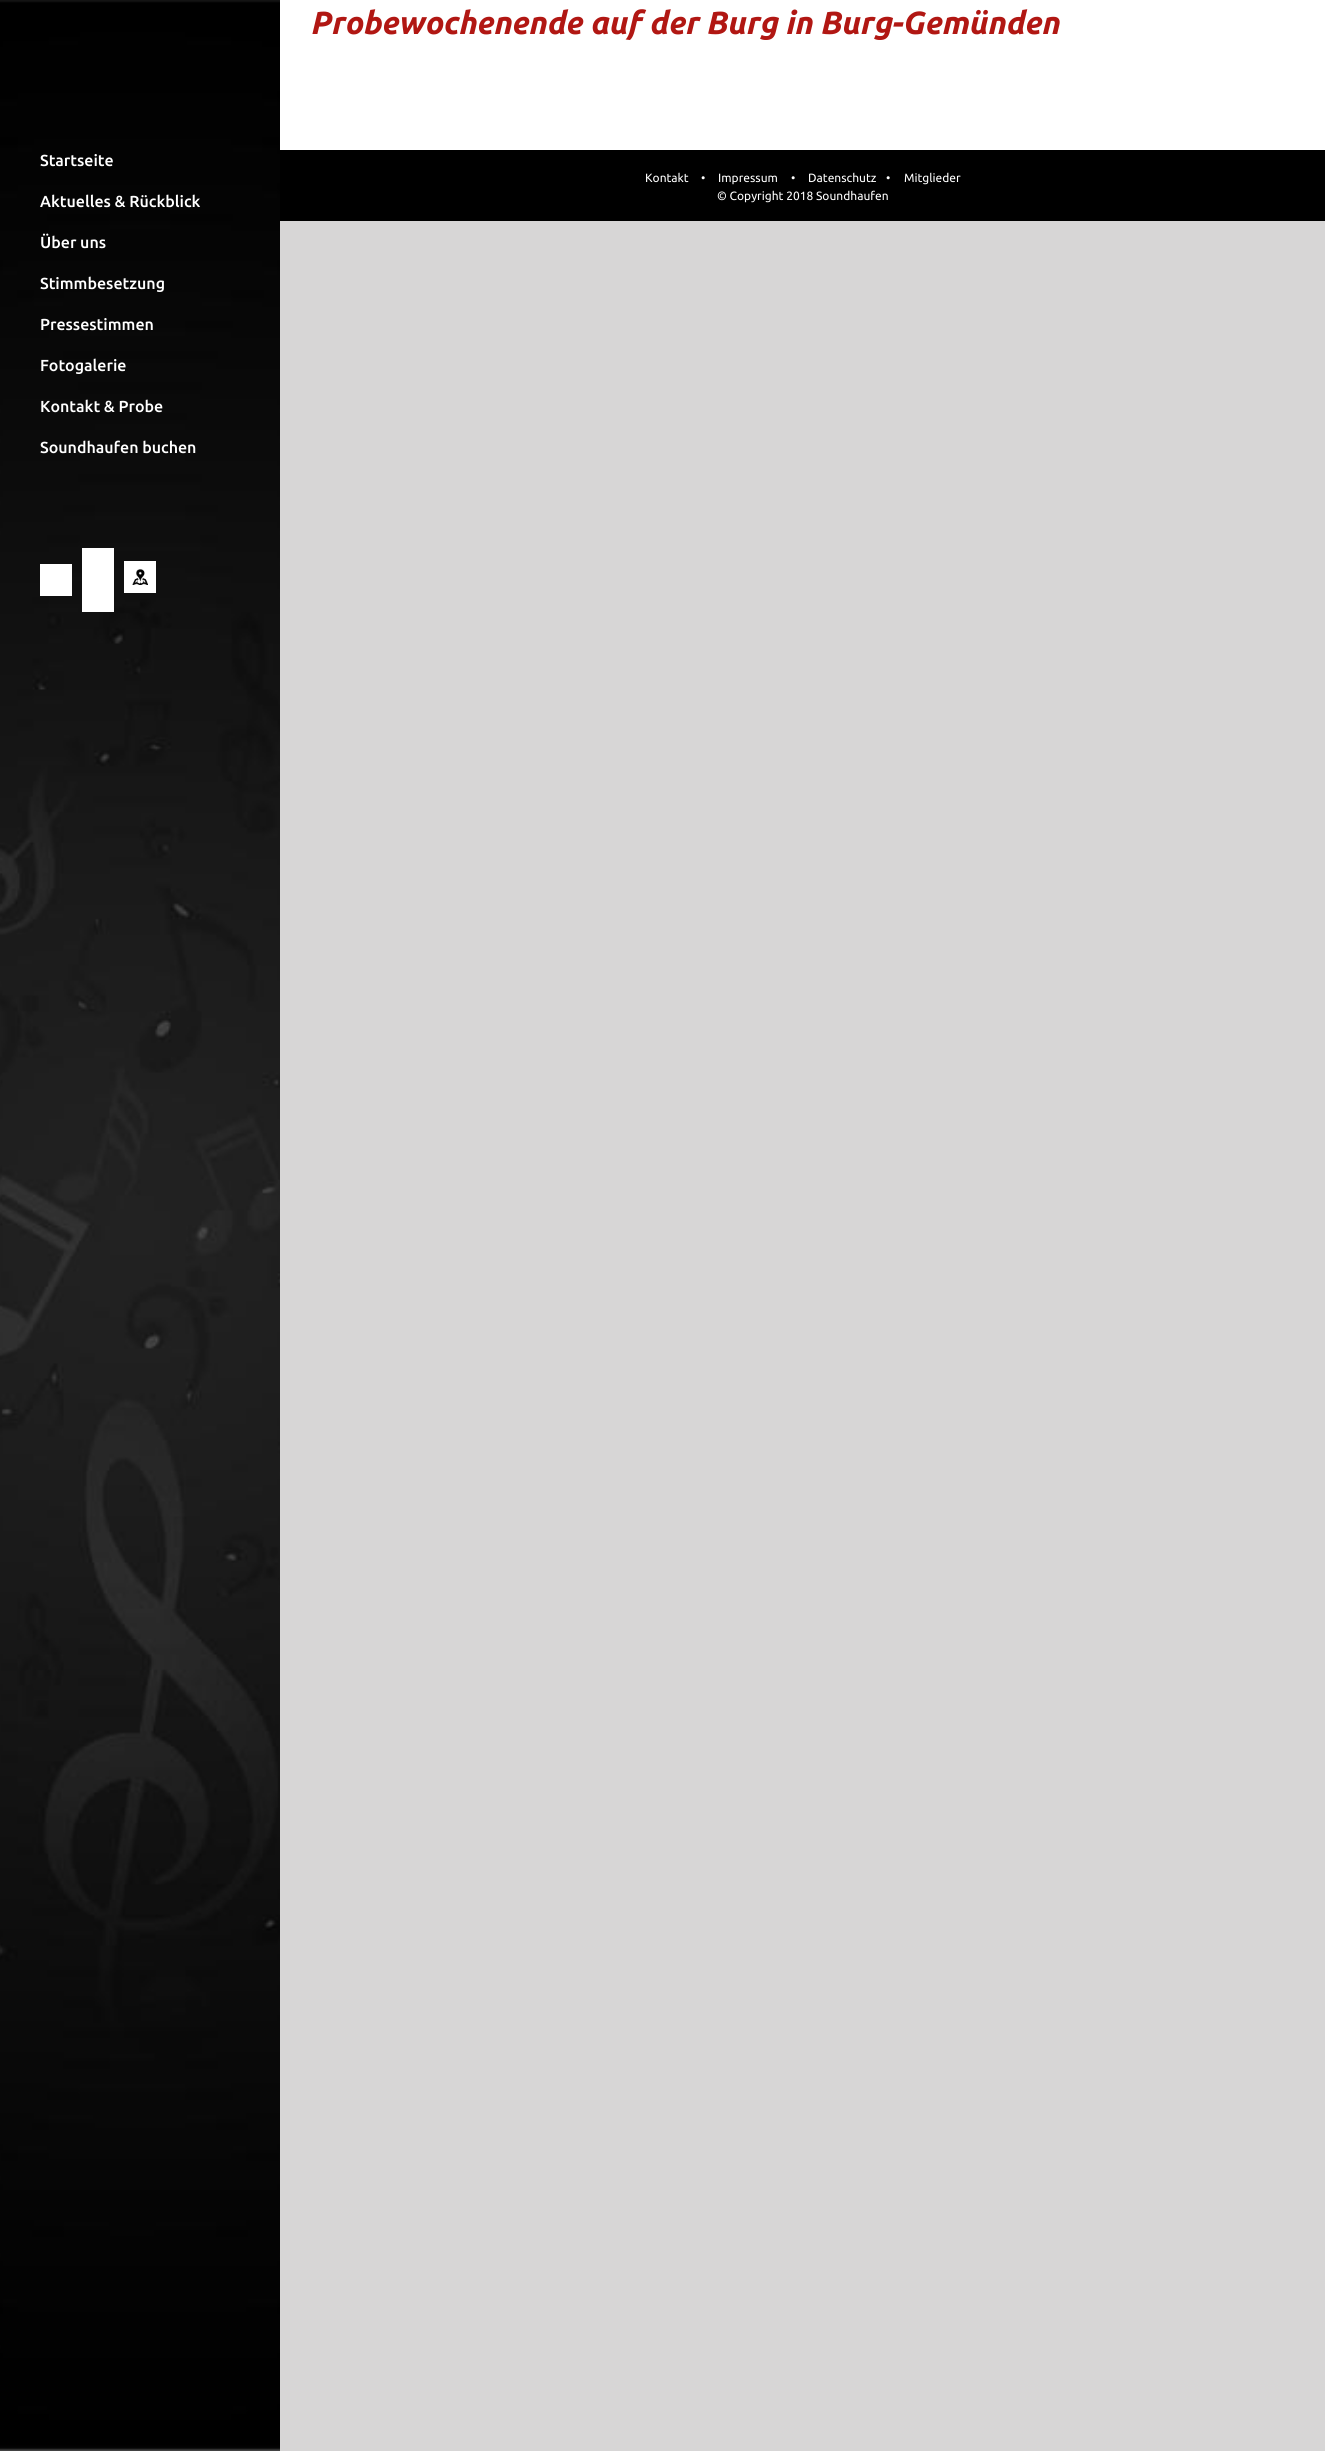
import math
import cairo

surface = cairo.ImageSurface(cairo.FORMAT_RGB24, 1325, 2451)
ctx = cairo.Context(surface)
options = cairo.FontOptions()
options.set_hint_metrics(cairo.HINT_METRICS_OFF)
options.set_hint_style(cairo.HINT_STYLE_NONE)
ctx.set_font_options(options)
ctx.set_miter_limit(4)


def set_color(code):
    ctx.set_source_rgb(*(v / 255 for v in bytes.fromhex(code[-6:])))


def draw_text(x, y, s, family, size, color, bold=False, italic=False):
    ctx.select_font_face(family, cairo.FONT_SLANT_ITALIC if italic else cairo.FONT_SLANT_NORMAL, cairo.FONT_WEIGHT_BOLD if bold else cairo.FONT_WEIGHT_NORMAL)
    ctx.set_font_size(size)
    set_color(color)
    ctx.move_to(x, y)
    ctx.show_text(s)


def fill_rect(x, y, w, h, color):
    set_color(color)
    ctx.rectangle(x, y, w, h)
    ctx.fill()


def draw_image(path, x, y, w, h):
    ctx.save()
    ctx.set_source_surface(cairo.ImageSurface.create_from_png(path), x, y)
    ctx.rectangle(x, y, w, h)
    ctx.fill()
    ctx.restore()


set_color("#d7d6d6")
ctx.paint()
fill_rect(280, 0, 1045, 150, "#ffffff")
draw_text(310, 34, "Probewochenende auf der Burg in Burg-Gemünden", "Ubuntu", 32, "#b11713", bold=True, italic=True)
draw_image("assets/img1.png", 0, 0, 280, 2451)
draw_text(40, 166, "Startseite", "Ubuntu Medium", 16, "#ffffff")
draw_text(40, 207, "Aktuelles & Rückblick", "Ubuntu Medium", 16, "#ffffff")
draw_text(40, 248, "Über uns", "Ubuntu Medium", 16, "#ffffff")
draw_text(40, 289, "Stimmbesetzung", "Ubuntu Medium", 16, "#ffffff")
draw_text(40, 330, "Pressestimmen", "Ubuntu Medium", 16, "#ffffff")
draw_text(40, 371, "Fotogalerie", "Ubuntu Medium", 16, "#ffffff")
draw_text(40, 412, "Kontakt & Probe", "Ubuntu Medium", 16, "#ffffff")
draw_text(40, 453, "Soundhaufen buchen", "Ubuntu Medium", 16, "#ffffff")
fill_rect(40, 564, 32, 32, "#ffffff")
fill_rect(82, 548, 32, 64, "#ffffff")
fill_rect(124, 561, 32, 32, "#ffffff")
draw_image("assets/img2.png", 132, 569, 16, 16)
fill_rect(280, 150, 1045, 71, "#000000")
draw_text(645, 182, "Kontakt", "Ubuntu", 12, "#ffffff")
draw_text(701, 182, "•", "Ubuntu", 12, "#ffffff")
draw_text(718, 182, "Impressum", "Ubuntu", 12, "#ffffff")
draw_text(791, 182, "•", "Ubuntu", 12, "#ffffff")
draw_text(808, 182, "Datenschutz", "Ubuntu", 12, "#ffffff")
draw_text(886, 182, "•", "Ubuntu", 12, "#ffffff")
draw_text(904, 182, "Mitglieder", "Ubuntu", 12, "#ffffff")
draw_text(717, 200, "© Copyright 2018 Soundhaufen", "Ubuntu", 12, "#ffffff")
surface.write_to_png("output.png")
